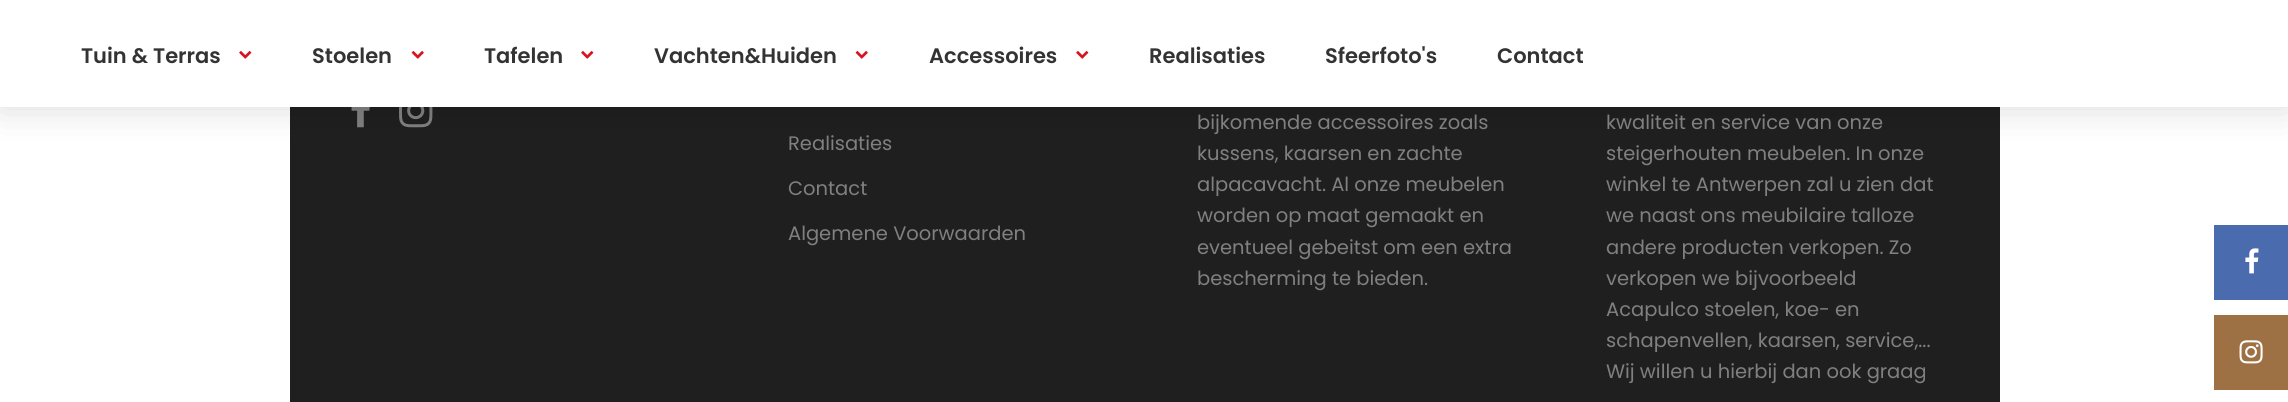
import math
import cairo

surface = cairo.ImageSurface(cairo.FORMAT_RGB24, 2288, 402)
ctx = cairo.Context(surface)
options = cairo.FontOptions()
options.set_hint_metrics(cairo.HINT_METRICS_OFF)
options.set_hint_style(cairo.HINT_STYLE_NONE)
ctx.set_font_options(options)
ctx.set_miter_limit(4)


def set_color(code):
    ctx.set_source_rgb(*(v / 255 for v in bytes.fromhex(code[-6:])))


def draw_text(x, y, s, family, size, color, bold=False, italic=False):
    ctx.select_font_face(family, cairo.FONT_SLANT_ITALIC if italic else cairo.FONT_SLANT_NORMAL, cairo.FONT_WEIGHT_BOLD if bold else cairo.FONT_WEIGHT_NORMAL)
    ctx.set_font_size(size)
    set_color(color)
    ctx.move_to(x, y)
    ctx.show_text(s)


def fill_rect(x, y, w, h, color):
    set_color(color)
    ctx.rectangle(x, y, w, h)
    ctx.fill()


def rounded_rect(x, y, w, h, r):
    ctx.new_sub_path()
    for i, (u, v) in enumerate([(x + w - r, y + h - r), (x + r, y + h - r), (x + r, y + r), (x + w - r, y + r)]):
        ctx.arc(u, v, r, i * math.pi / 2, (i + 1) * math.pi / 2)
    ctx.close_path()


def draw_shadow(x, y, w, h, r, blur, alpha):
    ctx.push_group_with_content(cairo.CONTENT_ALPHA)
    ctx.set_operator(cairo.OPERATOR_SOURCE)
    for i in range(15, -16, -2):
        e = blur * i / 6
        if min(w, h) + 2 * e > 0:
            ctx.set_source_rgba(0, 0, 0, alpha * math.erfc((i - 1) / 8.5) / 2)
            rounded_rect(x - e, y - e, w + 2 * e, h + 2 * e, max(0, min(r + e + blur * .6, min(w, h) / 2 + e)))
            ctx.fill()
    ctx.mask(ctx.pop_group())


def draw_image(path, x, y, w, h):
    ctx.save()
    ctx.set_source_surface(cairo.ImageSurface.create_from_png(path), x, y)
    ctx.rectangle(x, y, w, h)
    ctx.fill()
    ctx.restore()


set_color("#ffffff")
ctx.paint()
fill_rect(290, 107, 1710, 295, "#1f1f1f")
draw_image("assets/img3.png", 351, 107, 19, 21)
draw_image("assets/img4.png", 399, 107, 34, 21)
set_color("#000000")
draw_shadow(0, 0, 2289, 107, 0, 19, 0.15)
fill_rect(0, 0, 2288, 107, "#ffffff")
draw_text(81, 63, "Tuin & Terras", "Poppins SemiBold", 21, "#333333")
draw_image("assets/img1.png", 239, 51, 13, 8)
draw_text(312, 63, "Stoelen", "Poppins SemiBold", 21, "#333333")
draw_image("assets/img2.png", 411, 51, 13, 8)
draw_text(484, 63, "Tafelen", "Poppins SemiBold", 21, "#333333")
draw_image("assets/img1.png", 581, 51, 13, 8)
draw_text(654, 63, "Vachten&Huiden", "Poppins SemiBold", 21, "#333333")
draw_image("assets/img2.png", 855, 51, 13, 8)
draw_text(929, 63, "Accessoires", "Poppins SemiBold", 21, "#333333")
draw_image("assets/img1.png", 1076, 51, 13, 8)
draw_text(1149, 63, "Realisaties", "Poppins SemiBold", 21, "#333333")
draw_text(1325, 63, "Sfeerfoto's", "Poppins SemiBold", 21, "#333333")
draw_text(1497, 63, "Contact", "Poppins SemiBold", 21, "#333333")
draw_text(788, 150, "Realisaties", "Poppins", 19.5, "#808080")
draw_text(788, 195, "Contact", "Poppins", 19.5, "#808080")
draw_text(788, 240, "Algemene Voorwaarden", "Poppins", 19.5, "#808080")
draw_text(1197, 129, "bijkomende accessoires zoals", "Poppins", 19.5, "#808080")
draw_text(1197, 160, "kussens, kaarsen en zachte", "Poppins", 19.5, "#808080")
draw_text(1197, 191, "alpacavacht. Al onze meubelen", "Poppins", 19.5, "#808080")
draw_text(1197, 222, "worden op maat gemaakt en", "Poppins", 19.5, "#808080")
draw_text(1197, 254, "eventueel gebeitst om een extra", "Poppins", 19.5, "#808080")
draw_text(1197, 285, "bescherming te bieden.", "Poppins", 19.5, "#808080")
draw_text(1606, 129, "kwaliteit en service van onze", "Poppins", 19.5, "#808080")
draw_text(1606, 160, "steigerhouten meubelen. In onze", "Poppins", 19.5, "#808080")
draw_text(1606, 191, "winkel te Antwerpen zal u zien dat", "Poppins", 19.5, "#808080")
draw_text(1606, 222, "we naast ons meubilaire talloze", "Poppins", 19.5, "#808080")
draw_text(1606, 254, "andere producten verkopen. Zo", "Poppins", 19.5, "#808080")
draw_text(1606, 285, "verkopen we bijvoorbeeld", "Poppins", 19.5, "#808080")
draw_text(1606, 316, "Acapulco stoelen, koe- en", "Poppins", 19.5, "#808080")
draw_text(1606, 347, "schapenvellen, kaarsen, service,...", "Poppins", 19.5, "#808080")
draw_text(1606, 378, "Wij willen u hierbij dan ook graag", "Poppins", 19.5, "#808080")
fill_rect(2214, 225, 74, 75, "#4b6baf")
draw_image("assets/img5.png", 2245, 248, 14, 26)
fill_rect(2214, 315, 74, 75, "#9d7144")
draw_image("assets/img6.png", 2239, 340, 24, 24)
surface.write_to_png("output.png")
